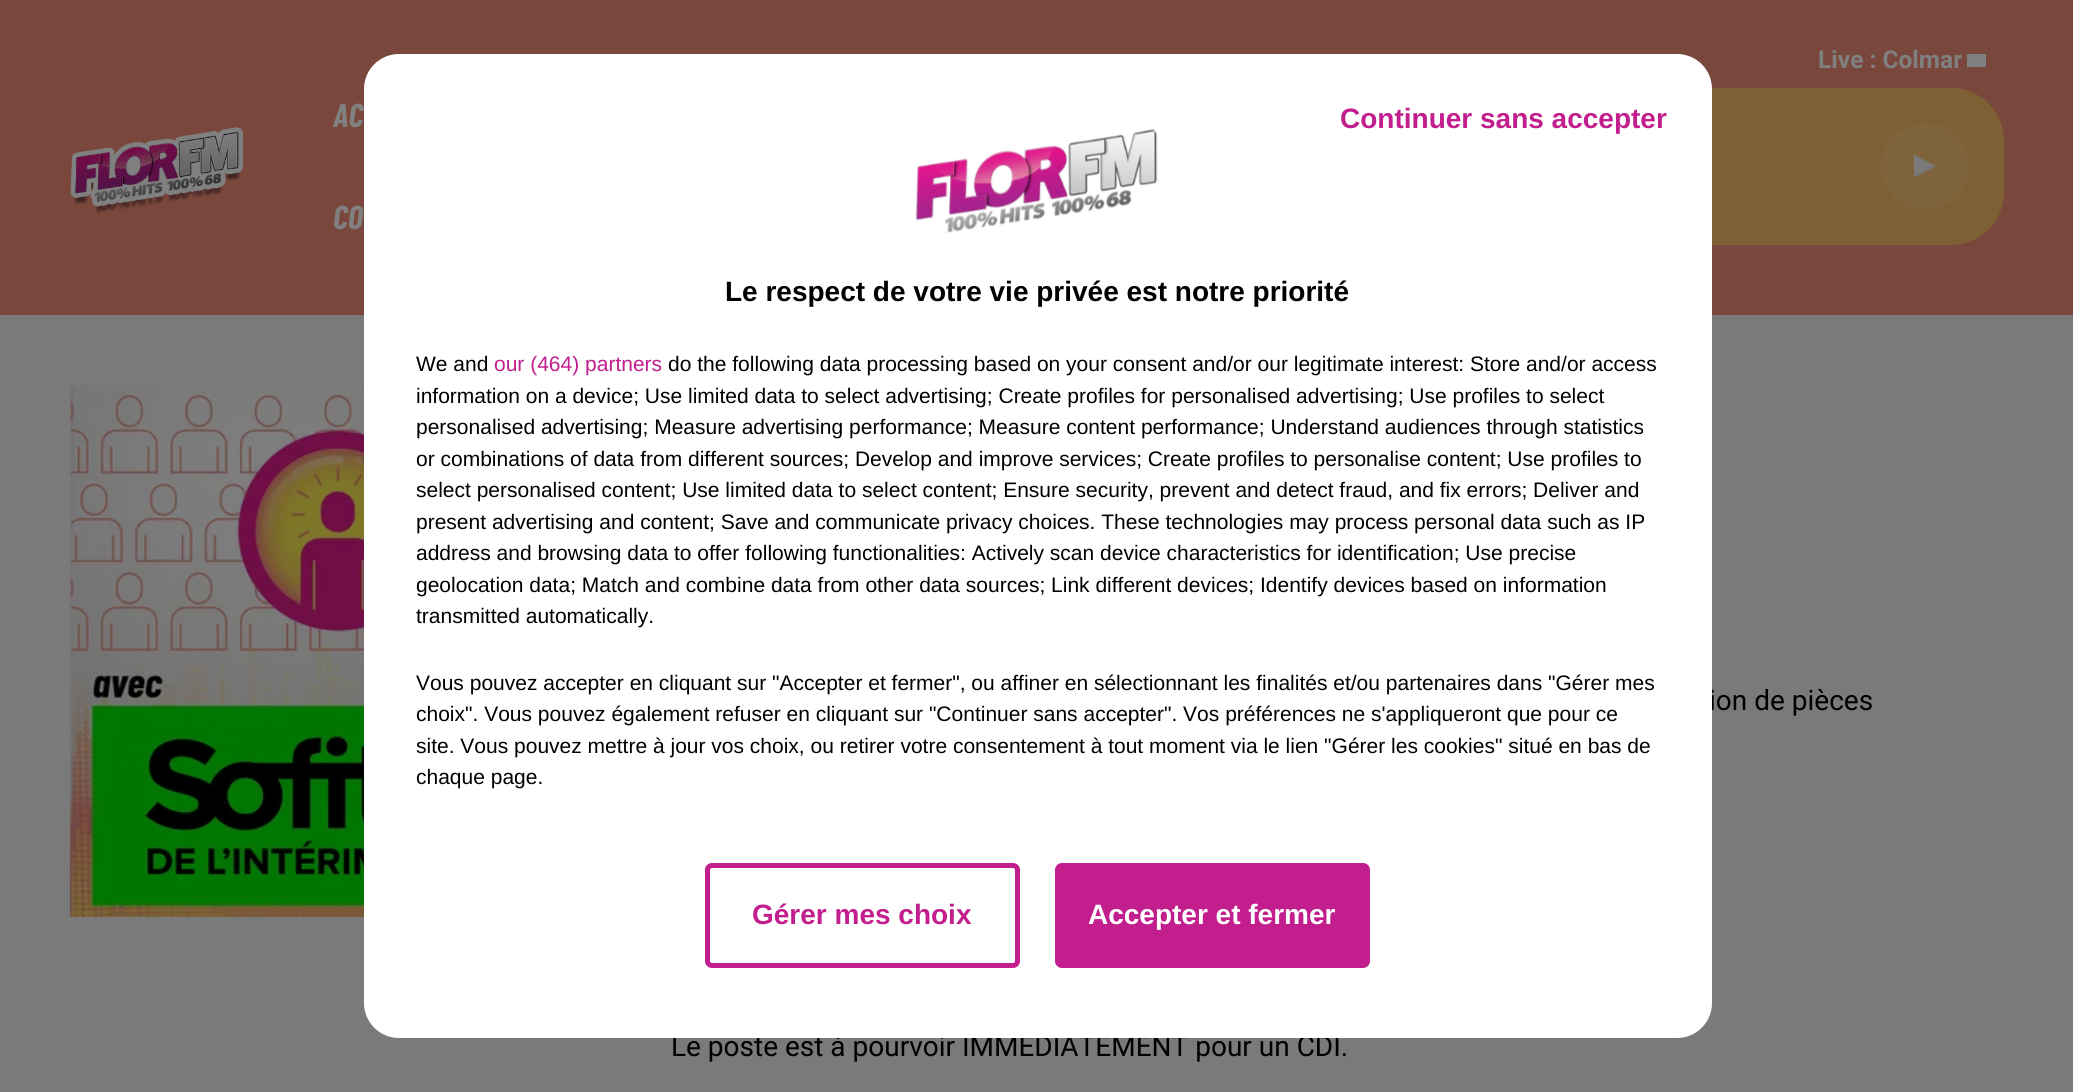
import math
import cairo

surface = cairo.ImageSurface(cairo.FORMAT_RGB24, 2073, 1092)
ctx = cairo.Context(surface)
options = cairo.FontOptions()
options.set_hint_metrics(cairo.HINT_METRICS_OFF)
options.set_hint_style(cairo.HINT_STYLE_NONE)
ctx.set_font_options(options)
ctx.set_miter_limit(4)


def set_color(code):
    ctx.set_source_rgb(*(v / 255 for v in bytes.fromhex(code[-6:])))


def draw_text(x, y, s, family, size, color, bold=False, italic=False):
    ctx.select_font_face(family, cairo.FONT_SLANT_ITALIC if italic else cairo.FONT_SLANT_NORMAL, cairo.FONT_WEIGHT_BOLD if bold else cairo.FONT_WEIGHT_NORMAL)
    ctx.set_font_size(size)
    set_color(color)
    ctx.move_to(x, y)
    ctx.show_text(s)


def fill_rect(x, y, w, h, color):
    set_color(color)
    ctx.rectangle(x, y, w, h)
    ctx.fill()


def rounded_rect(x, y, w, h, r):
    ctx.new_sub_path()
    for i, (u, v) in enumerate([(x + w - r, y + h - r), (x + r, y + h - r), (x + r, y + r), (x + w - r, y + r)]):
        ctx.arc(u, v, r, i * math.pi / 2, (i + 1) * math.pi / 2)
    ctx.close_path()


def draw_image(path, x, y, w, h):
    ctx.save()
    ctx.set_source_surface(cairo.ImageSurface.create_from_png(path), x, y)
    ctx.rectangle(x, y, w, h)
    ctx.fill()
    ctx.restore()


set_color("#7b7a7a")
ctx.paint()
fill_rect(0, 0, 2073, 315, "#7a473d")
draw_text(1818, 68, "Live : Colmar", "Roboto", 24.5, "#808080", bold=True)
fill_rect(1967, 54, 19, 13, "#808080")
set_color("#7e6035")
rounded_rect(1339, 88, 665, 157, 53)
ctx.fill()
set_color("#7e633c")
rounded_rect(1881, 123, 88, 87, 43.5)
ctx.fill()
set_color("#7b7a7a")
ctx.new_path()
ctx.move_to(1936, 166)
ctx.line_to(1914, 177.5)
ctx.line_to(1914, 155)
ctx.close_path()
ctx.fill()
draw_image("assets/img1.png", 70, 127, 174, 86)
draw_text(333, 127, "AC", "Barlow Condensed", 33, "#808080", bold=True, italic=True)
draw_text(333, 229, "CO", "Barlow Condensed", 33, "#808080", bold=True, italic=True)
draw_image("assets/img2.png", 70, 385, 294, 532)
draw_text(1709, 710, "ion de pièces", "Roboto", 28, "#000000")
draw_text(671, 1056, "Le poste est à pourvoir IMMEDIATEMENT pour un CDI.", "Roboto", 28, "#000000")
set_color("#ffffff")
rounded_rect(364, 54, 1348, 984, 35)
ctx.fill()
draw_text(1340, 128, "Continuer sans accepter", "Liberation Sans", 28, "#c21e8d", bold=True)
rounded_rect(707.5, 865.5, 310, 100, 4.5)
ctx.set_line_width(5)
ctx.stroke()
draw_text(752, 924, "Gérer mes choix", "Liberation Sans", 28, "#c21e8d", bold=True)
rounded_rect(1057.5, 865.5, 310, 100, 4.5)
ctx.fill_preserve()
ctx.stroke()
draw_text(1088, 924, "Accepter et fermer", "Liberation Sans", 28, "#ffffff", bold=True)
draw_image("assets/img3.png", 915, 129, 243, 104)
draw_text(725, 301, "Le respect de votre vie privée est notre priorité", "Liberation Sans", 28, "#000000", bold=True)
draw_text(416, 371, "We and", "Liberation Sans", 21, "#000000")
draw_text(494, 371, "our (464) partners", "Liberation Sans", 21, "#c21e8d")
draw_text(668, 371, "do the following data processing based on your consent and/or our legitimate interest: Store and/or access", "Liberation Sans", 21, "#000000")
draw_text(416, 403, "information on a device; Use limited data to select advertising; Create profiles for personalised advertising; Use profiles to select", "Liberation Sans", 21, "#000000")
draw_text(416, 434, "personalised advertising; Measure advertising performance; Measure content performance; Understand audiences through statistics", "Liberation Sans", 21, "#000000")
draw_text(416, 466, "or combinations of data from different sources; Develop and improve services; Create profiles to personalise content; Use profiles to", "Liberation Sans", 21, "#000000")
draw_text(416, 497, "select personalised content; Use limited data to select content; Ensure security, prevent and detect fraud, and fix errors; Deliver and", "Liberation Sans", 21, "#000000")
draw_text(416, 529, "present advertising and content; Save and communicate privacy choices. These technologies may process personal data such as IP", "Liberation Sans", 21, "#000000")
draw_text(416, 560, "address and browsing data to offer following functionalities: Actively scan device characteristics for identification; Use precise", "Liberation Sans", 21, "#000000")
draw_text(416, 592, "geolocation data; Match and combine data from other data sources; Link different devices; Identify devices based on information", "Liberation Sans", 21, "#000000")
draw_text(416, 623, "transmitted automatically.", "Liberation Sans", 21, "#000000")
draw_text(416, 690, "Vous pouvez accepter en cliquant sur \"Accepter et fermer\", ou affiner en sélectionnant les finalités et/ou partenaires dans \"Gérer mes", "Liberation Sans", 21, "#000000")
draw_text(416, 721, "choix\". Vous pouvez également refuser en cliquant sur \"Continuer sans accepter\". Vos préférences ne s'appliqueront que pour ce", "Liberation Sans", 21, "#000000")
draw_text(416, 753, "site. Vous pouvez mettre à jour vos choix, ou retirer votre consentement à tout moment via le lien \"Gérer les cookies\" situé en bas de", "Liberation Sans", 21, "#000000")
draw_text(416, 784, "chaque page.", "Liberation Sans", 21, "#000000")
surface.write_to_png("output.png")
